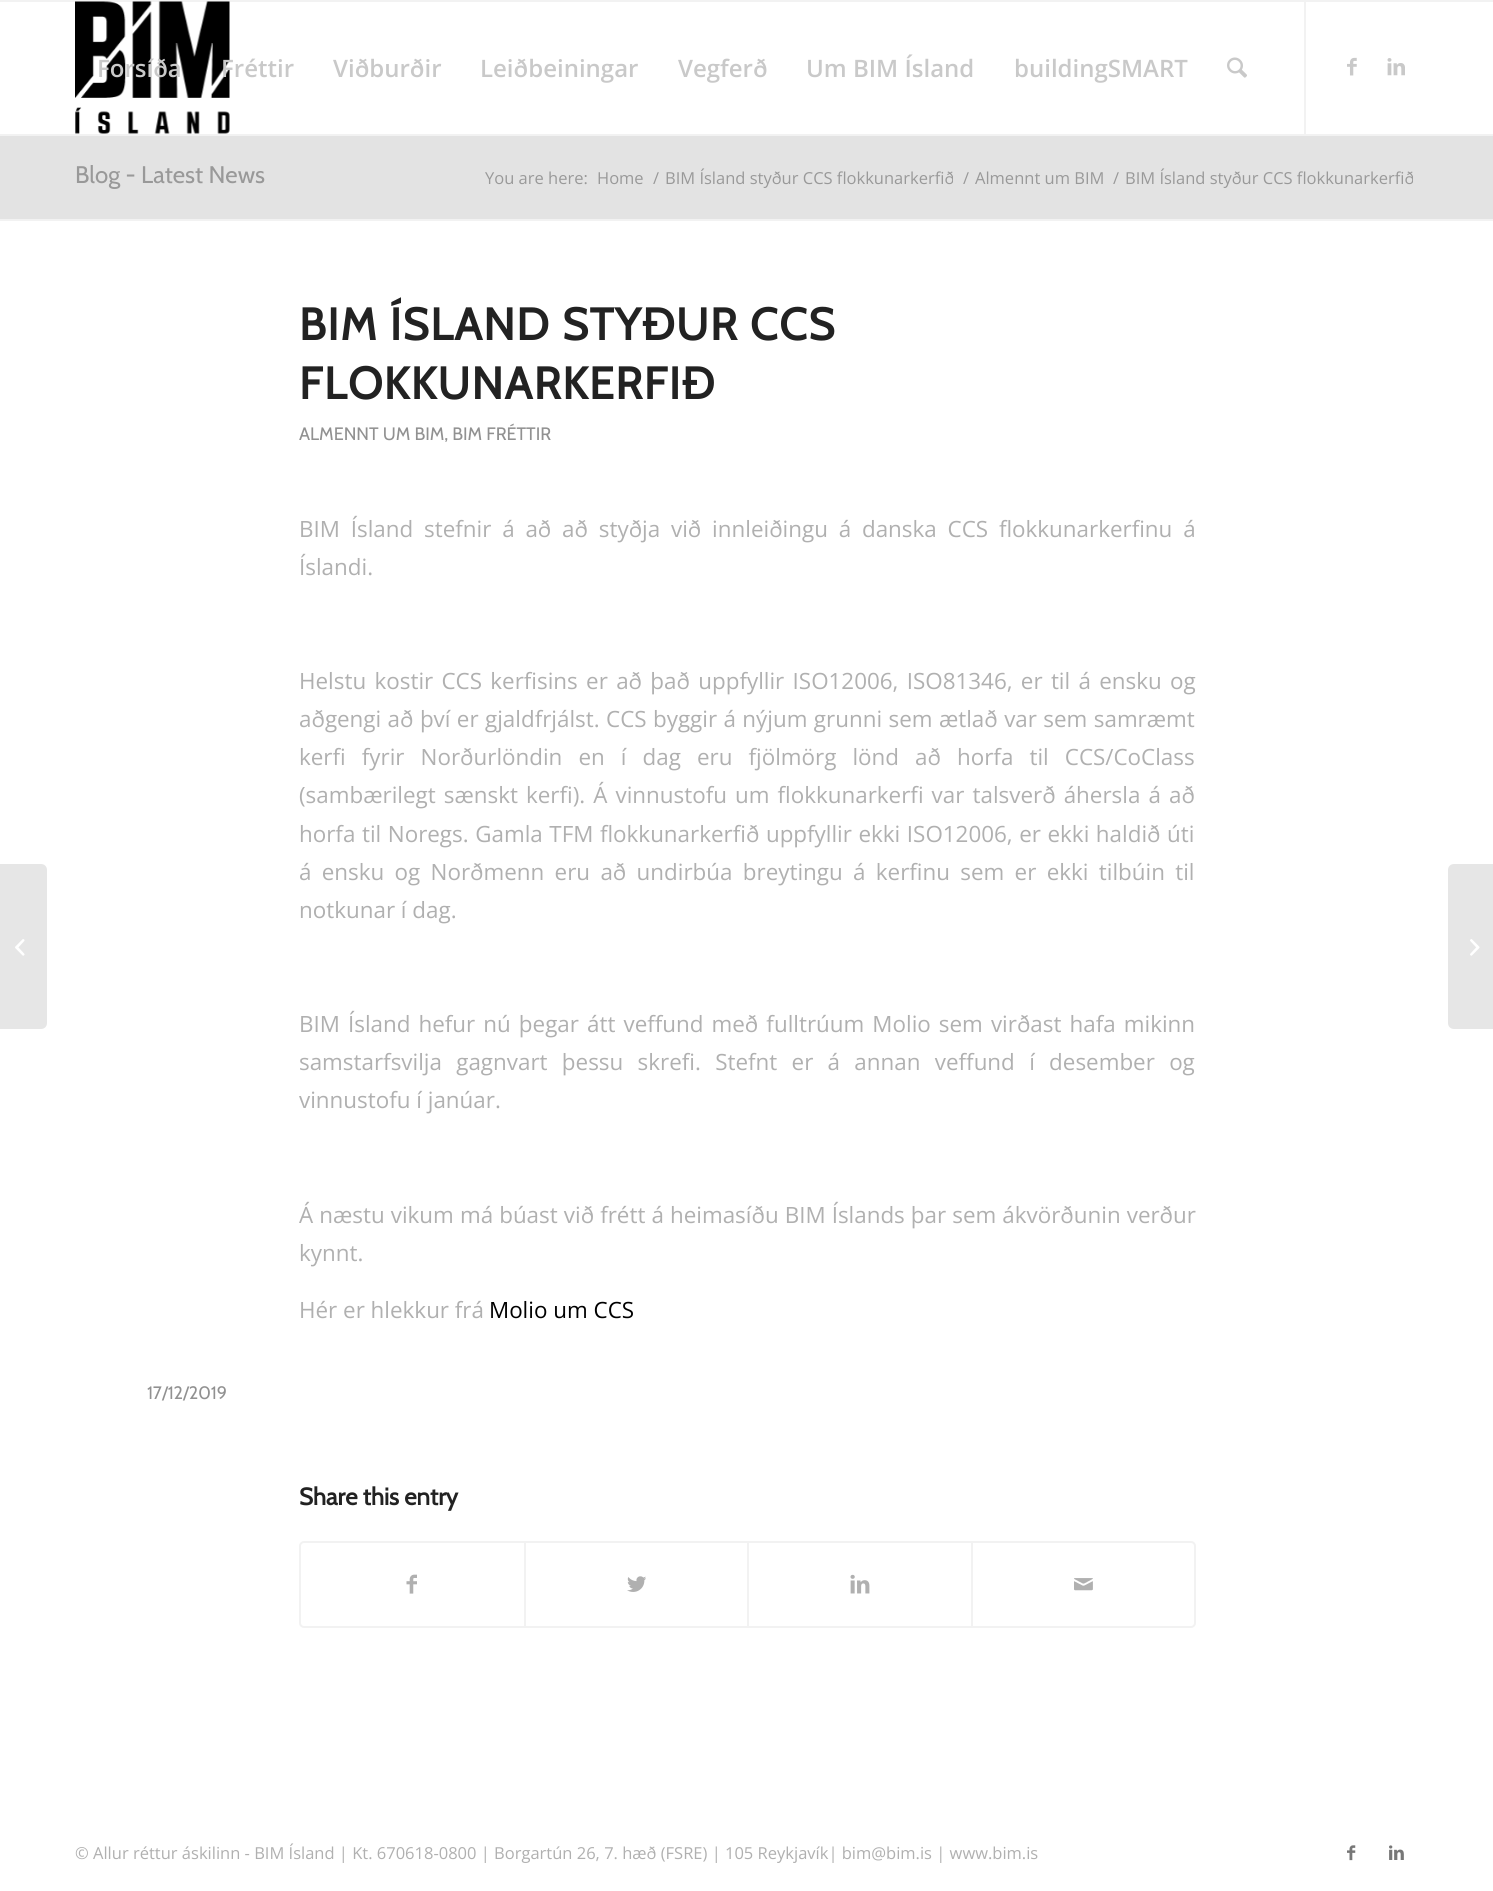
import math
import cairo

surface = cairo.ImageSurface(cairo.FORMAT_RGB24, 1493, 1891)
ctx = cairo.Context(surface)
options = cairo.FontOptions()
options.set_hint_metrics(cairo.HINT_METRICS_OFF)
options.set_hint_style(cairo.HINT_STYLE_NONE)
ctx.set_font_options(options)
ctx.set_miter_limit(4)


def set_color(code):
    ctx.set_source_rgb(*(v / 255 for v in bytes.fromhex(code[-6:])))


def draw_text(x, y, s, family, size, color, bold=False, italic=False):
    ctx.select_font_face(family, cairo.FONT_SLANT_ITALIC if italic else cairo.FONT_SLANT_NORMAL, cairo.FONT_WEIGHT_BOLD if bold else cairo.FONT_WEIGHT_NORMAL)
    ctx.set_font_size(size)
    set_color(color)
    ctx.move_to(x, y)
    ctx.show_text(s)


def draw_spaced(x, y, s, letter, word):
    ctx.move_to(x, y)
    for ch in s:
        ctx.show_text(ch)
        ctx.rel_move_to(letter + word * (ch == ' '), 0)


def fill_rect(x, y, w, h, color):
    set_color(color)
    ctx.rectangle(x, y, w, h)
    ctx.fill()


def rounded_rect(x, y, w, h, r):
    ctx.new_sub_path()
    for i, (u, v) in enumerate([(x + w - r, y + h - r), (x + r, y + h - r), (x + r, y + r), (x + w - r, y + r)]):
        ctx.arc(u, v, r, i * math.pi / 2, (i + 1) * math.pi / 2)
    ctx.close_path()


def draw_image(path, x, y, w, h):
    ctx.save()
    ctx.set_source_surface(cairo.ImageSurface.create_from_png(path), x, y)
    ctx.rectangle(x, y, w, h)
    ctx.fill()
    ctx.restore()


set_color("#ffffff")
ctx.paint()
fill_rect(0, 0, 1493, 2, "#f2f2f2")
fill_rect(0, 134, 1493, 2, "#f2f2f2")
draw_image("assets/img1.png", 75, 1, 155, 133)
fill_rect(1304, 2, 2, 132, "#f2f2f2")
draw_text(97, 77, "Forsíða", "Open Sans SemiBold", 24, "#c9c9c9")
draw_text(221, 77, "Fréttir", "Open Sans SemiBold", 24, "#c9c9c9")
draw_text(333, 77, "Viðburðir", "Open Sans SemiBold", 24, "#c9c9c9")
draw_text(480, 77, "Leiðbeiningar", "Open Sans SemiBold", 24, "#c9c9c9")
draw_text(678, 77, "Vegferð", "Open Sans SemiBold", 24, "#c9c9c9")
draw_text(806, 77, "Um BIM Ísland", "Open Sans SemiBold", 24, "#c9c9c9")
draw_text(1014, 77, "buildingSMART", "Open Sans SemiBold", 24, "#c9c9c9")
draw_image("assets/img2.png", 1227, 57, 20, 21)
draw_image("assets/img3.png", 1347, 57, 10, 19)
draw_image("assets/img4.png", 1387, 58, 18, 18)
set_color("#e6e6e6")
ctx.new_path()
ctx.move_to(0, 864)
ctx.line_to(41, 864)
ctx.curve_to(44.5, 864, 47, 866.5, 47, 870)
ctx.line_to(47, 1023)
ctx.curve_to(47, 1026.5, 44.5, 1029, 41, 1029)
ctx.line_to(0, 1029)
ctx.close_path()
ctx.fill()
draw_image("assets/img5.png", 15, 939, 10, 17)
fill_rect(0, 136, 1493, 83, "#e3e3e3")
draw_text(75, 183, "Blog - Latest News", "Cabin", 24, "#999999")
draw_text(485, 184, "You are here:", "Open Sans", 16.5, "#999999")
draw_text(597, 184, "Home", "Open Sans", 16.5, "#999999")
draw_text(653, 184, "/", "Open Sans", 16.5, "#999999")
draw_text(665, 184, "BIM Ísland styður CCS flokkunarkerfið", "Open Sans", 16.5, "#999999")
draw_text(963, 184, "/", "Open Sans", 16.5, "#999999")
draw_text(975, 184, "Almennt um BIM", "Open Sans", 16.5, "#999999")
draw_text(1113, 184, "/", "Open Sans", 16.5, "#999999")
draw_text(1125, 184, "BIM Ísland styður CCS flokkunarkerfið", "Open Sans", 16.5, "#999999")
fill_rect(0, 219, 1493, 2, "#f2f2f2")
ctx.select_font_face("Cabin", cairo.FONT_SLANT_NORMAL, cairo.FONT_WEIGHT_BOLD)
ctx.set_font_size(44.8)
set_color("#222222")
draw_spaced(299, 340, "BIM ÍSLAND STYÐUR CCS", 1.5, 0)
draw_spaced(299, 399, "FLOKKUNARKERFIÐ", 1.5, 0)
draw_text(299, 440, "ALMENNT UM BIM, BIM FRÉTTIR", "Cabin", 18, "#919191")
ctx.select_font_face("Open Sans")
ctx.set_font_size(22.4)
set_color("#b0b0b0")
draw_spaced(299, 537, "BIM Ísland stefnir á að að styðja við innleiðingu á danska CCS flokkunarkerfinu á", 0, 5)
draw_text(299, 575, "Íslandi.", "Open Sans", 22.4, "#b0b0b0")
draw_spaced(299, 689, "Helstu kostir CCS kerfisins er að það uppfyllir ISO12006, ISO81346, er til á ensku og", 0, 2.5)
draw_spaced(299, 727, "aðgengi að því er gjaldfrjálst. CCS byggir á nýjum grunni sem ætlað var sem samræmt", 0, 0.6)
draw_spaced(299, 765, "kerfi fyrir Norðurlöndin en í dag eru fjölmörg lönd að horfa til CCS/CoClass", 0, 10.25)
draw_spaced(299, 803, "(sambærilegt sænskt kerfi). Á vinnustofu um flokkunarkerfi var talsverð áhersla á að", 0, 2.25)
draw_spaced(299, 842, "horfa til Noregs. Gamla TFM flokkunarkerfið uppfyllir ekki ISO12006, er ekki haldið úti", 0, 0.75)
draw_spaced(299, 880, "á ensku og Norðmenn eru að undirbúa breytingu á kerfinu sem er ekki tilbúin til", 0, 4.5)
draw_text(299, 918, "notkunar í dag.", "Open Sans", 22.4, "#b0b0b0")
draw_spaced(299, 1032, "BIM Ísland hefur nú þegar átt veffund með fulltrúum Molio sem virðast hafa mikinn", 0, 2.25)
draw_spaced(299, 1070, "samstarfsvilja gagnvart þessu skrefi. Stefnt er á annan veffund í desember og", 0, 8.5)
draw_text(299, 1108, "vinnustofu í janúar.", "Open Sans", 22.4, "#b0b0b0")
draw_spaced(299, 1223, "Á næstu vikum má búast við frétt á heimasíðu BIM Íslands þar sem ákvörðunin verður", 0, 0.25)
draw_text(299, 1261, "kynnt.", "Open Sans", 22.4, "#b0b0b0")
draw_text(299, 1318, "Hér er hlekkur frá", "Open Sans", 22.4, "#b0b0b0")
draw_text(489, 1318, "Molio um CCS", "Open Sans", 22.4, "#000000")
draw_text(147, 1399, "17/12/2019", "Cabin", 18, "#919191")
draw_text(299, 1505, "Share this entry", "Cabin", 24, "#222222", bold=True)
rounded_rect(300, 1542, 895, 85, 4)
set_color("#f2f2f2")
ctx.stroke()
draw_image("assets/img6.png", 406, 1574, 11, 20)
fill_rect(524, 1542, 2, 84, "#f2f2f2")
draw_image("assets/img7.png", 627, 1576, 19, 16)
fill_rect(747, 1542, 2, 84, "#f2f2f2")
draw_image("assets/img8.png", 850, 1574, 20, 20)
fill_rect(971, 1542, 2, 84, "#f2f2f2")
draw_image("assets/img9.png", 1074, 1578, 19, 13)
draw_text(75, 1859, "© Allur réttur áskilinn - BIM Ísland | Kt. 670618-0800 | Borgartún 26, 7. hæð (FSRE) | 105 Reykjavík| bim@bim.is | www.bim.is", "Open Sans", 16.5, "#b0b0b0")
draw_image("assets/img10.png", 1347, 1845, 9, 16)
draw_image("assets/img11.png", 1389, 1845, 15, 15)
set_color("#e6e6e6")
ctx.new_path()
ctx.move_to(1454, 864)
ctx.line_to(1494, 864)
ctx.line_to(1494, 1029)
ctx.line_to(1454, 1029)
ctx.curve_to(1450.5, 1029, 1448, 1026.5, 1448, 1023)
ctx.line_to(1448, 870)
ctx.curve_to(1448, 866.5, 1450.5, 864, 1454, 864)
ctx.close_path()
ctx.fill()
draw_image("assets/img12.png", 1470, 939, 10, 17)
surface.write_to_png("output.png")
